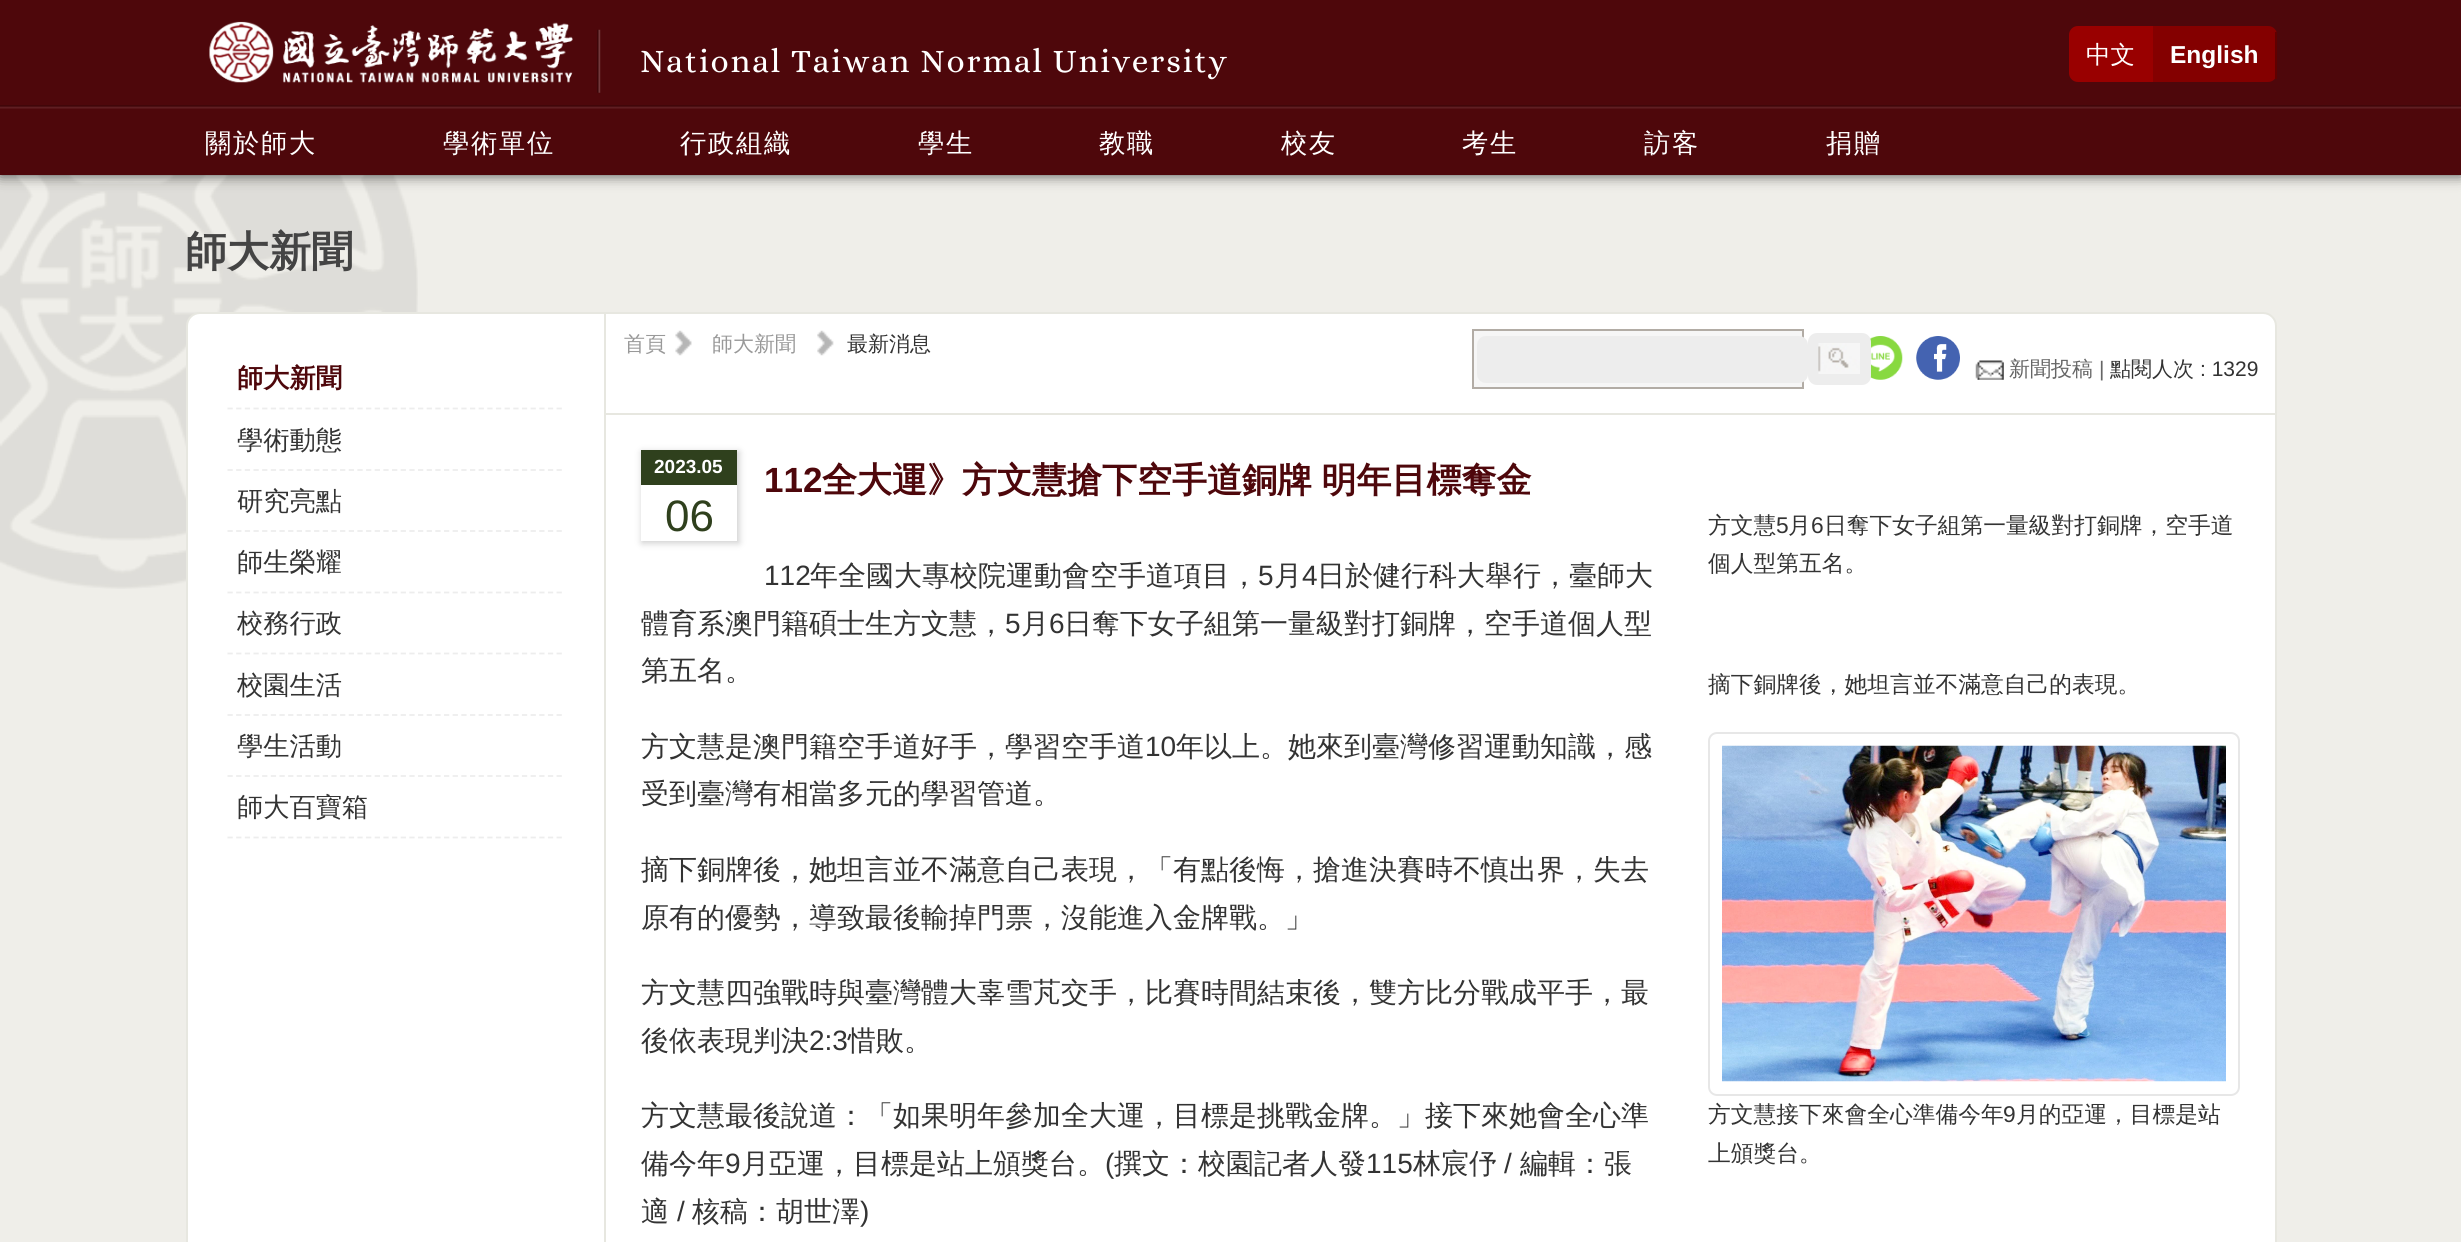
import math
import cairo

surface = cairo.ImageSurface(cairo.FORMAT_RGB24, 2461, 1242)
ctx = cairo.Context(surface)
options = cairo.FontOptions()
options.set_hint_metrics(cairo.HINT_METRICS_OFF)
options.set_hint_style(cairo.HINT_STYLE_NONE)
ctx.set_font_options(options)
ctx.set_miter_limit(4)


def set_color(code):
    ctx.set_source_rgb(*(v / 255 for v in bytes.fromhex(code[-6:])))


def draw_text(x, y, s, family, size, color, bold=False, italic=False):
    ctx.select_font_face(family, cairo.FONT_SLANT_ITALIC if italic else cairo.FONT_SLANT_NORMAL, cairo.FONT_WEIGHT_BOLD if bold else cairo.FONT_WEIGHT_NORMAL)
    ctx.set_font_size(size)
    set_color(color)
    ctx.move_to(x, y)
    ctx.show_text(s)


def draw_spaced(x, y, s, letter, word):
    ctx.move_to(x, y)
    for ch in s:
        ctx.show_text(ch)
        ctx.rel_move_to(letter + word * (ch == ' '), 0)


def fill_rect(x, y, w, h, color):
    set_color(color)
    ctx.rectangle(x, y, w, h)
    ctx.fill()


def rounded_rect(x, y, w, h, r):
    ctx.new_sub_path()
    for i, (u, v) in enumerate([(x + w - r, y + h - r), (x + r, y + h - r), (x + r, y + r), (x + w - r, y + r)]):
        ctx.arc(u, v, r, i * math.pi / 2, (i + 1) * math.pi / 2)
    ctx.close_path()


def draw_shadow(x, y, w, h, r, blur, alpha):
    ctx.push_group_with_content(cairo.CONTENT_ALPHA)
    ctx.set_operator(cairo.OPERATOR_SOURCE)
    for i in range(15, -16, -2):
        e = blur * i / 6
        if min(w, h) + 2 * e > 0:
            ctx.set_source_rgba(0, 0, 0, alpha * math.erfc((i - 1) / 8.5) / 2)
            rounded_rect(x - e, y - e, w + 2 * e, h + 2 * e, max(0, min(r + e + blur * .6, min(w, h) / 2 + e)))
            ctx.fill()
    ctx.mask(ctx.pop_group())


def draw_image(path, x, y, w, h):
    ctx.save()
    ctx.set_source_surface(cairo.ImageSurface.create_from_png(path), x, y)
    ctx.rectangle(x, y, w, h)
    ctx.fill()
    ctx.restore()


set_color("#efeee9")
ctx.paint()
set_color("#000000")
draw_shadow(0, 0, 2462, 175, 0, 7, 0.7)
fill_rect(0, 0, 2461, 175, "#4e070b")
draw_image("assets/img1.png", 0, 105, 2461, 4)
draw_image("assets/img2.png", 209, 21, 364, 62)
draw_image("assets/img3.png", 597, 29, 4, 64)
ctx.select_font_face("Alice")
ctx.set_font_size(33.25)
set_color("#ffffff")
draw_spaced(640, 72, "National Taiwan Normal University", 1.75, 0)
set_color("#990000")
ctx.new_path()
ctx.move_to(2078, 26)
ctx.line_to(2153, 26)
ctx.line_to(2153, 82)
ctx.line_to(2078, 82)
ctx.curve_to(2073, 82, 2069, 78, 2069, 73)
ctx.line_to(2069, 35)
ctx.curve_to(2069, 30, 2073, 26, 2078, 26)
ctx.close_path()
ctx.fill()
draw_text(2086, 63, "中文", "WenQuanYi Zen Hei Medium", 24.5, "#ffffff")
set_color("#840000")
ctx.new_path()
ctx.move_to(2153, 26)
ctx.line_to(2268, 26)
ctx.curve_to(2273, 26, 2277, 30, 2277, 35)
ctx.line_to(2277, 73)
ctx.curve_to(2277, 78, 2273, 82, 2268, 82)
ctx.line_to(2153, 82)
ctx.close_path()
ctx.fill()
fill_rect(2275, 32, 2, 47, "#600000")
draw_text(2170, 63, "English", "Liberation Sans", 24.5, "#ffffff", bold=True)
ctx.select_font_face("WenQuanYi Zen Hei Medium")
ctx.set_font_size(26.25)
draw_spaced(205, 152, "關於師大", 1.75, 0)
draw_spaced(443, 152, "學術單位", 1.75, 0)
draw_spaced(680, 152, "行政組織", 1.75, 0)
draw_spaced(918, 152, "學生", 1.75, 0)
draw_spaced(1099, 152, "教職", 1.75, 0)
draw_spaced(1281, 152, "校友", 1.75, 0)
draw_spaced(1462, 152, "考生", 1.75, 0)
draw_spaced(1644, 152, "訪客", 1.75, 0)
draw_spaced(1826, 152, "捐贈", 1.75, 0)
draw_image("assets/img4.png", 0, 175, 418, 414)
draw_text(185, 266, "師大新聞", "WenQuanYi Zen Hei", 42, "#444444", bold=True)
set_color("#ffffff")
rounded_rect(187, 313, 2089, 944, 13)
ctx.fill_preserve()
set_color("#e7e7e0")
ctx.stroke()
ctx.new_path()
ctx.move_to(227.5, 408.5)
ctx.line_to(562, 408.5)
set_color("#ededed")
ctx.set_line_width(1.8)
ctx.set_dash([5.25, 3.41])
ctx.stroke()
draw_text(237, 387, "師大新聞", "WenQuanYi Zen Hei", 26.25, "#4e070b", bold=True)
ctx.new_path()
ctx.move_to(227.5, 470)
ctx.line_to(562, 470)
set_color("#ededed")
ctx.stroke()
draw_text(237, 449, "學術動態", "WenQuanYi Zen Hei Medium", 26.25, "#333333")
ctx.new_path()
ctx.move_to(227.5, 531)
ctx.line_to(562, 531)
set_color("#ededed")
ctx.stroke()
draw_text(237, 510, "研究亮點", "WenQuanYi Zen Hei Medium", 26.25, "#333333")
ctx.new_path()
ctx.move_to(227.5, 592.5)
ctx.line_to(562, 592.5)
set_color("#ededed")
ctx.stroke()
draw_text(237, 571, "師生榮耀", "WenQuanYi Zen Hei Medium", 26.25, "#333333")
ctx.new_path()
ctx.move_to(227.5, 653.5)
ctx.line_to(562, 653.5)
set_color("#ededed")
ctx.stroke()
draw_text(237, 632, "校務行政", "WenQuanYi Zen Hei Medium", 26.25, "#333333")
ctx.new_path()
ctx.move_to(227.5, 715)
ctx.line_to(562, 715)
set_color("#ededed")
ctx.stroke()
draw_text(237, 694, "校園生活", "WenQuanYi Zen Hei Medium", 26.25, "#333333")
ctx.new_path()
ctx.move_to(227.5, 776)
ctx.line_to(562, 776)
set_color("#ededed")
ctx.stroke()
draw_text(237, 755, "學生活動", "WenQuanYi Zen Hei Medium", 26.25, "#333333")
ctx.new_path()
ctx.move_to(227.5, 837.5)
ctx.line_to(562, 837.5)
set_color("#ededed")
ctx.stroke()
draw_text(237, 816, "師大百寶箱", "WenQuanYi Zen Hei Medium", 26.25, "#333333")
fill_rect(604, 313, 2, 929, "#e7e7e0")
fill_rect(606, 413, 1669, 2, "#e7e7e0")
draw_text(624, 351, "首頁", "WenQuanYi Zen Hei Medium", 21, "#999999")
draw_image("assets/img5.png", 675, 330, 17, 26)
draw_text(712, 351, "師大新聞", "WenQuanYi Zen Hei Medium", 21, "#999999")
draw_image("assets/img6.png", 817, 330, 17, 26)
draw_text(847, 351, "最新消息", "WenQuanYi Zen Hei Medium", 21, "#333333")
set_color("#f6f6f6")
ctx.rectangle(1473, 330, 330, 58)
ctx.fill_preserve()
set_color("#b2aca5")
ctx.set_line_width(2)
ctx.set_dash([])
ctx.stroke()
set_color("#ededed")
rounded_rect(1477, 336, 331, 47, 9)
ctx.fill()
draw_image("assets/img8.png", 1870, 336, 33, 44)
rounded_rect(1808, 333, 63, 52, 9)
ctx.fill()
draw_image("assets/img7.png", 1818, 343, 42, 31)
draw_image("assets/img9.png", 1916, 336, 44, 44)
draw_image("assets/img10.png", 1975, 360, 29, 20)
draw_text(2009, 376, "新聞投稿", "WenQuanYi Zen Hei Medium", 21, "#666666")
draw_text(2099, 376, "|", "Liberation Sans", 21, "#666666")
draw_text(2110, 376, "點閱人次", "WenQuanYi Zen Hei Medium", 21, "#333333")
draw_text(2200, 376, ": 1329", "Liberation Sans", 21, "#333333")
set_color("#cccccc")
draw_shadow(642, 452, 97, 91, 0, 3.5, 1)
fill_rect(641, 485, 96, 56, "#ffffff")
fill_rect(641, 450, 96, 35, "#2f401d")
draw_text(654, 473, "2023.05", "Liberation Sans", 19, "#ffffff", bold=True)
draw_text(665, 531, "06", "Liberation Sans", 44, "#2f401d")
draw_text(764, 492, "112", "Liberation Sans", 35, "#4e070b", bold=True)
ctx.select_font_face("WenQuanYi Zen Hei", cairo.FONT_SLANT_NORMAL, cairo.FONT_WEIGHT_BOLD)
draw_spaced(822, 492, "全大運》方文慧搶下空手道銅牌 明年目標奪金", 0, -1)
draw_text(764, 585, "112", "Liberation Sans", 28, "#333333")
draw_text(810, 585, "年全國大專校院運動會空手道項目，", "WenQuanYi Zen Hei Medium", 28, "#333333")
draw_text(1258, 585, "5", "Liberation Sans", 28, "#333333")
draw_text(1274, 585, "月", "WenQuanYi Zen Hei Medium", 28, "#333333")
draw_text(1302, 585, "4", "Liberation Sans", 28, "#333333")
draw_text(1317, 585, "日於健行科大舉行，臺師大", "WenQuanYi Zen Hei Medium", 28, "#333333")
draw_text(641, 633, "體育系澳門籍碩士生方文慧，", "WenQuanYi Zen Hei Medium", 28, "#333333")
draw_text(1005, 633, "5", "Liberation Sans", 28, "#333333")
draw_text(1021, 633, "月", "WenQuanYi Zen Hei Medium", 28, "#333333")
draw_text(1049, 633, "6", "Liberation Sans", 28, "#333333")
draw_text(1064, 633, "日奪下女子組第一量級對打銅牌，空手道個人型", "WenQuanYi Zen Hei Medium", 28, "#333333")
draw_text(641, 680, "第五名。", "WenQuanYi Zen Hei Medium", 28, "#333333")
draw_text(1708, 533, "方文慧", "WenQuanYi Zen Hei Medium", 22.75, "#333333")
draw_text(1776, 533, "5", "Liberation Sans", 22.75, "#333333")
draw_text(1788, 533, "月", "WenQuanYi Zen Hei Medium", 22.75, "#333333")
draw_text(1811, 533, "6", "Liberation Sans", 22.75, "#333333")
draw_text(1824, 533, "日奪下女子組第一量級對打銅牌，空手道", "WenQuanYi Zen Hei Medium", 22.75, "#333333")
draw_text(1708, 571, "個人型第五名。", "WenQuanYi Zen Hei Medium", 22.75, "#333333")
draw_text(1708, 692, "摘下銅牌後，她坦言並不滿意自己的表現。", "WenQuanYi Zen Hei Medium", 22.75, "#333333")
rounded_rect(1709, 733, 530, 362, 8)
set_color("#e7e7e7")
ctx.stroke()
draw_image("assets/img11.png", 1722, 745, 504, 337)
draw_text(1708, 1122, "方文慧接下來會全心準備今年", "WenQuanYi Zen Hei Medium", 22.75, "#333333")
draw_text(2003, 1122, "9", "Liberation Sans", 22.75, "#333333")
draw_text(2016, 1122, "月的亞運，目標是站", "WenQuanYi Zen Hei Medium", 22.75, "#333333")
draw_text(1708, 1161, "上頒獎台。", "WenQuanYi Zen Hei Medium", 22.75, "#333333")
draw_text(641, 756, "方文慧是澳門籍空手道好手，學習空手道", "WenQuanYi Zen Hei Medium", 28, "#333333")
draw_text(1145, 756, "10", "Liberation Sans", 28, "#333333")
draw_text(1176, 756, "年以上。她來到臺灣修習運動知識，感", "WenQuanYi Zen Hei Medium", 28, "#333333")
draw_text(641, 803, "受到臺灣有相當多元的學習管道。", "WenQuanYi Zen Hei Medium", 28, "#333333")
draw_text(641, 879, "摘下銅牌後，她坦言並不滿意自己表現，「有點後悔，搶進決賽時不慎出界，失去", "WenQuanYi Zen Hei Medium", 28, "#333333")
draw_text(641, 927, "原有的優勢，導致最後輸掉門票，沒能進入金牌戰。」", "WenQuanYi Zen Hei Medium", 28, "#333333")
draw_text(641, 1002, "方文慧四強戰時與臺灣體大辜雪芃交手，比賽時間結束後，雙方比分戰成平手，最", "WenQuanYi Zen Hei Medium", 28, "#333333")
draw_text(641, 1050, "後依表現判決", "WenQuanYi Zen Hei Medium", 28, "#333333")
draw_text(809, 1050, "2:3", "Liberation Sans", 28, "#333333")
draw_text(848, 1050, "惜敗。", "WenQuanYi Zen Hei Medium", 28, "#333333")
draw_text(641, 1125, "方文慧最後說道：「如果明年參加全大運，目標是挑戰金牌。」接下來她會全心準", "WenQuanYi Zen Hei Medium", 28, "#333333")
draw_text(641, 1173, "備今年", "WenQuanYi Zen Hei Medium", 28, "#333333")
draw_text(725, 1173, "9", "Liberation Sans", 28, "#333333")
draw_text(741, 1173, "月亞運，目標是站上頒獎台。", "WenQuanYi Zen Hei Medium", 28, "#333333")
draw_text(1105, 1173, "(", "Liberation Sans", 28, "#333333")
draw_text(1114, 1173, "撰文：校園記者人發", "WenQuanYi Zen Hei Medium", 28, "#333333")
draw_text(1366, 1173, "115", "Liberation Sans", 28, "#333333")
draw_text(1413, 1173, "林宸伃", "WenQuanYi Zen Hei Medium", 28, "#333333")
draw_text(1504, 1173, "/", "Liberation Sans", 28, "#333333")
draw_text(1520, 1173, "編輯：張", "WenQuanYi Zen Hei Medium", 28, "#333333")
draw_text(641, 1221, "適", "WenQuanYi Zen Hei Medium", 28, "#333333")
draw_text(677, 1221, "/", "Liberation Sans", 28, "#333333")
draw_text(692, 1221, "核稿：胡世澤", "WenQuanYi Zen Hei Medium", 28, "#333333")
draw_text(860, 1221, ")", "Liberation Sans", 28, "#333333")
surface.write_to_png("output.png")
